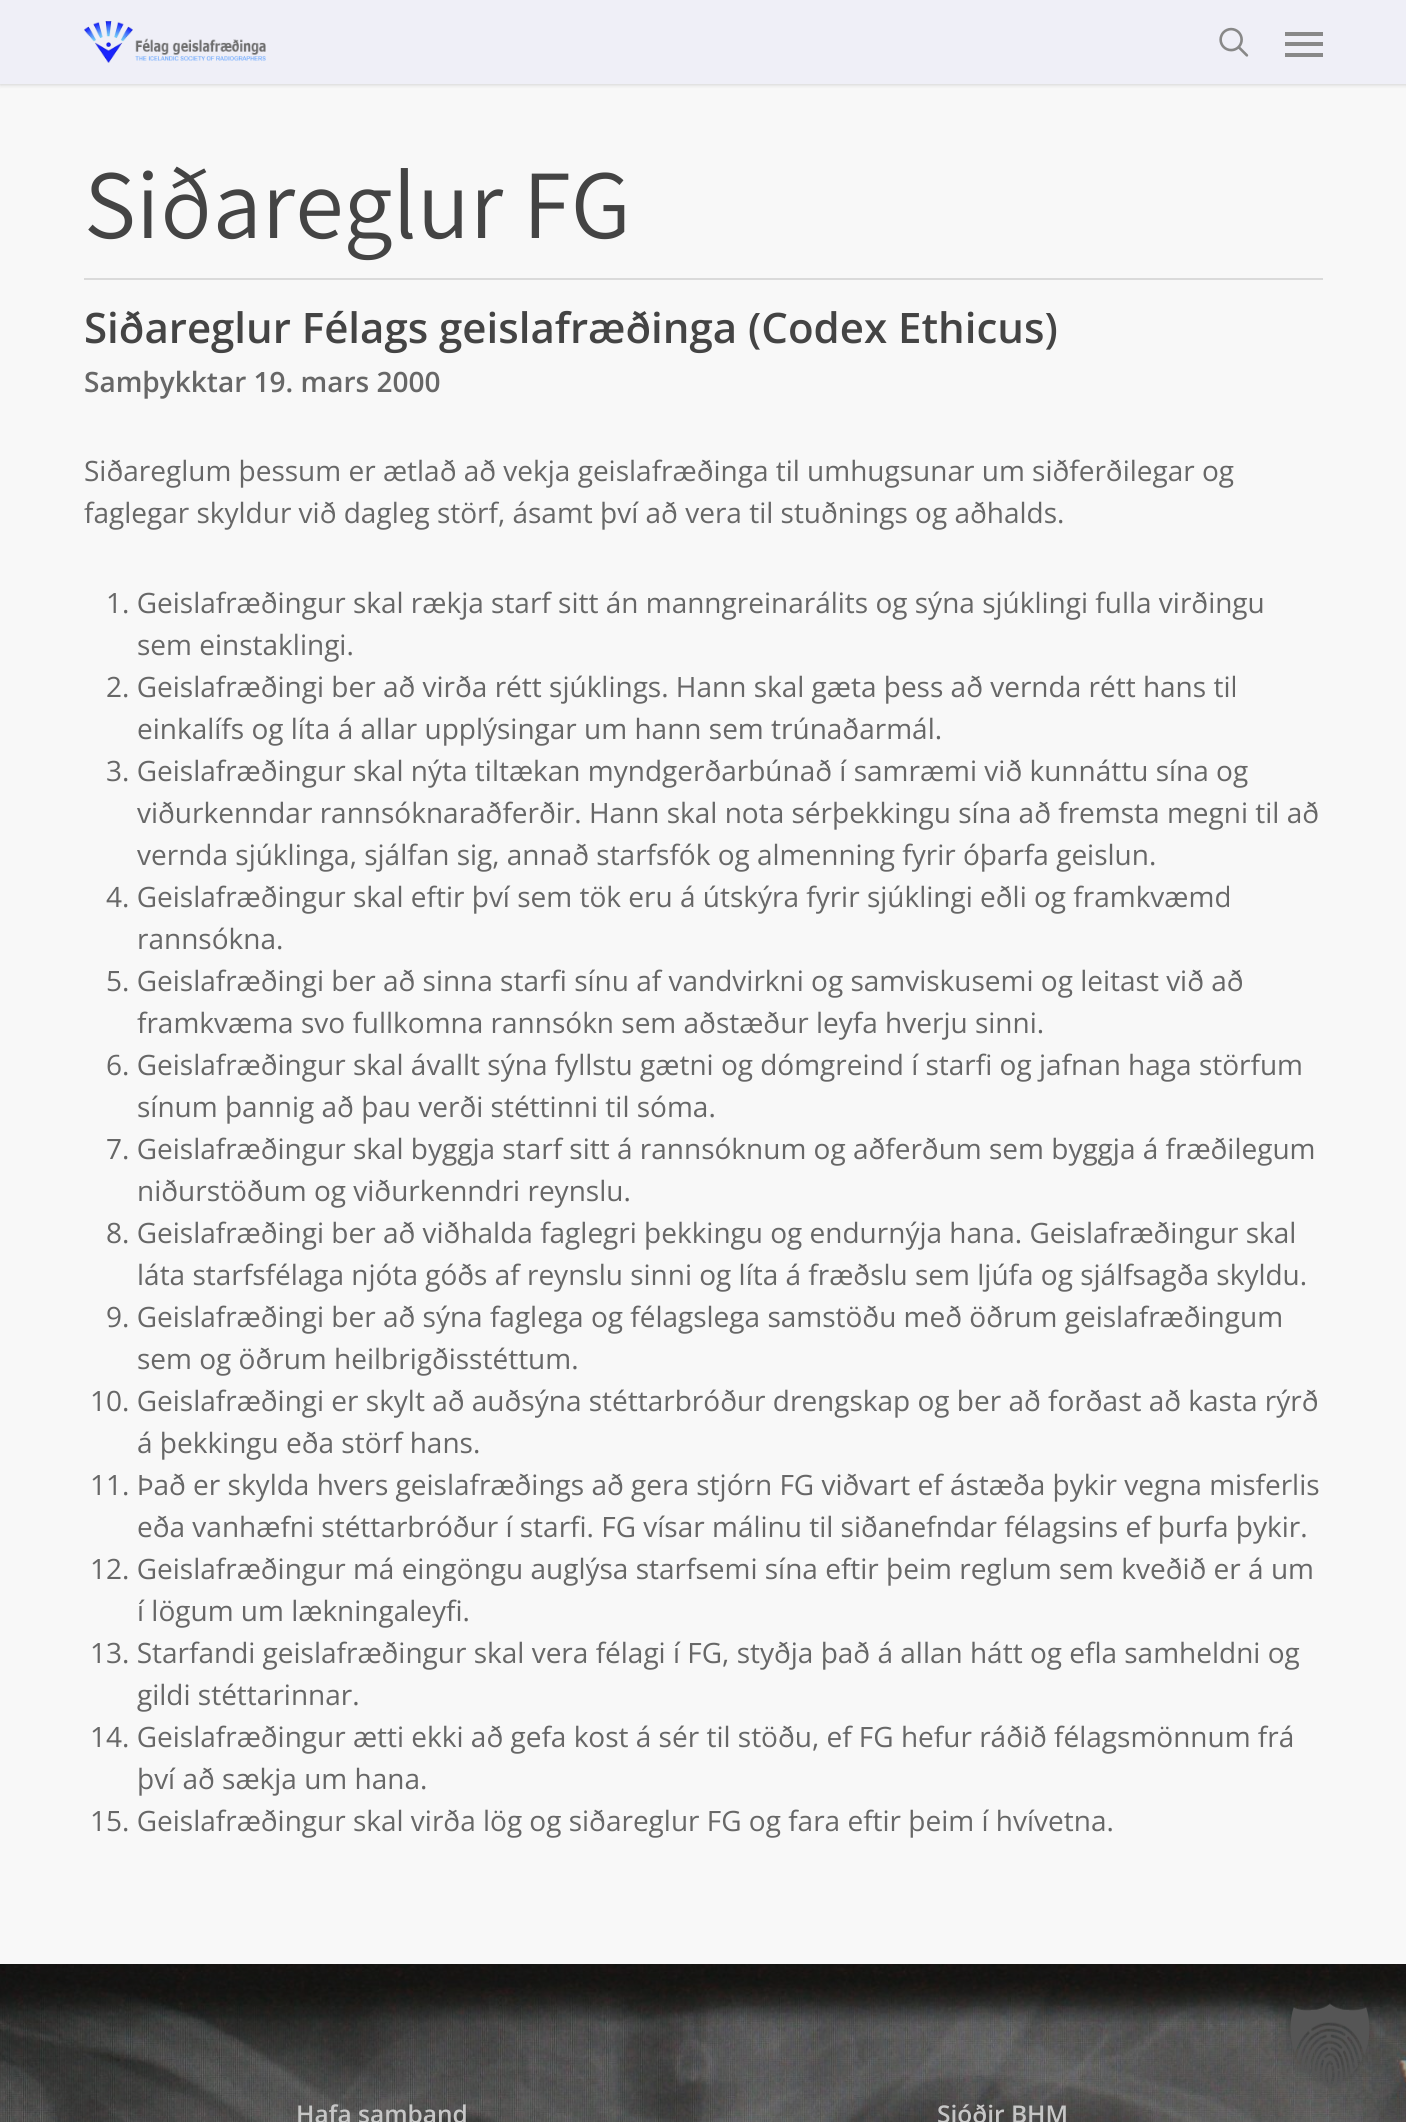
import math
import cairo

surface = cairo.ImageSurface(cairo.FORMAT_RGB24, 1406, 2122)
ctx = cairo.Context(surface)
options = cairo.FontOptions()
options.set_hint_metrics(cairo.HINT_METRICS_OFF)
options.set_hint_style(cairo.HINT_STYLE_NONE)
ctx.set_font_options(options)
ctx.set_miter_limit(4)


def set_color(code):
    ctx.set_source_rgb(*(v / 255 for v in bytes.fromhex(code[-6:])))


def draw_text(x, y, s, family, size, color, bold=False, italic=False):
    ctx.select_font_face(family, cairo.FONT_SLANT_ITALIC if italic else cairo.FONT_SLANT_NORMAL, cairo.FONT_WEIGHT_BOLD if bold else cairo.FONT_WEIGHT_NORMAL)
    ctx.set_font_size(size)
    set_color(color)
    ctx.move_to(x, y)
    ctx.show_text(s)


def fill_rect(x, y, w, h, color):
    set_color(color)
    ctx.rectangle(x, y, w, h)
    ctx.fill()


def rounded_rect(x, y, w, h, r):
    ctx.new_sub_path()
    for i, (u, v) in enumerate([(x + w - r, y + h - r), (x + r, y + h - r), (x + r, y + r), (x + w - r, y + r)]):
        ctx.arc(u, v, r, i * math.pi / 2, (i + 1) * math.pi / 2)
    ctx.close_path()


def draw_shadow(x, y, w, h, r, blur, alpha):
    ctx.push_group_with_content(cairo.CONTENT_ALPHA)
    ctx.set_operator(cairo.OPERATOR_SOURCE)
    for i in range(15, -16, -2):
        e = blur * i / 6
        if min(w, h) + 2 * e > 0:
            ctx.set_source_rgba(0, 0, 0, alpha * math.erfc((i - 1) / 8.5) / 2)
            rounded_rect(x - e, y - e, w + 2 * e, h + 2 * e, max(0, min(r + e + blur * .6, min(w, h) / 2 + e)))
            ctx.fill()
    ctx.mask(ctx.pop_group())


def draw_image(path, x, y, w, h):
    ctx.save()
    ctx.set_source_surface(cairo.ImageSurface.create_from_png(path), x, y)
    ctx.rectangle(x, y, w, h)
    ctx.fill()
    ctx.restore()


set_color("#ffffff")
ctx.paint()
fill_rect(0, 84, 1406, 1880, "#f8f8f8")
set_color("#000000")
draw_shadow(0, 0, 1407, 84, 0, 2.5, 0.22)
fill_rect(0, 0, 1406, 84, "#efeff7")
draw_image("assets/img1.png", 84, 21, 182, 42)
draw_image("assets/img2.png", 1219, 27, 30, 30)
fill_rect(1285, 32, 38, 4, "#888888")
fill_rect(1285, 53, 38, 4, "#888888")
fill_rect(1285, 42, 38, 4, "#888888")
draw_text(84, 238, "Siðareglur FG", "Assistant", 98, "#444444")
fill_rect(84, 278, 1239, 2, "#dadada")
draw_text(84, 343, "Siðareglur Félags geislafræðinga (Codex Ethicus)", "Open Sans SemiBold", 42, "#444444")
draw_text(84, 392, "Samþykktar 19. mars 2000", "Open Sans SemiBold", 28, "#676767")
draw_text(84, 481, "Siðareglum þessum er ætlað að vekja geislafræðinga til umhugsunar um siðferðilegar og", "Open Sans", 28, "#676767")
draw_text(84, 523, "faglegar skyldur við dagleg störf, ásamt því að vera til stuðnings og aðhalds.", "Open Sans", 28, "#676767")
draw_text(106, 613, "1. Geislafræðingur skal rækja starf sitt án manngreinarálits og sýna sjúklingi fulla virðingu", "Open Sans", 28, "#676767")
draw_text(137, 655, "sem einstaklingi.", "Open Sans", 28, "#676767")
draw_text(106, 697, "2. Geislafræðingi ber að virða rétt sjúklings. Hann skal gæta þess að vernda rétt hans til", "Open Sans", 28, "#676767")
draw_text(137, 739, "einkalífs og líta á allar upplýsingar um hann sem trúnaðarmál.", "Open Sans", 28, "#676767")
draw_text(106, 781, "3. Geislafræðingur skal nýta tiltækan myndgerðarbúnað í samræmi við kunnáttu sína og", "Open Sans", 28, "#676767")
draw_text(137, 823, "viðurkenndar rannsóknaraðferðir. Hann skal nota sérþekkingu sína að fremsta megni til að", "Open Sans", 28, "#676767")
draw_text(137, 865, "vernda sjúklinga, sjálfan sig, annað starfsfók og almenning fyrir óþarfa geislun.", "Open Sans", 28, "#676767")
draw_text(106, 907, "4. Geislafræðingur skal eftir því sem tök eru á útskýra fyrir sjúklingi eðli og framkvæmd", "Open Sans", 28, "#676767")
draw_text(137, 949, "rannsókna.", "Open Sans", 28, "#676767")
draw_text(106, 991, "5. Geislafræðingi ber að sinna starfi sínu af vandvirkni og samviskusemi og leitast við að", "Open Sans", 28, "#676767")
draw_text(137, 1033, "framkvæma svo fullkomna rannsókn sem aðstæður leyfa hverju sinni.", "Open Sans", 28, "#676767")
draw_text(106, 1075, "6. Geislafræðingur skal ávallt sýna fyllstu gætni og dómgreind í starfi og jafnan haga störfum", "Open Sans", 28, "#676767")
draw_text(137, 1117, "sínum þannig að þau verði stéttinni til sóma.", "Open Sans", 28, "#676767")
draw_text(106, 1159, "7. Geislafræðingur skal byggja starf sitt á rannsóknum og aðferðum sem byggja á fræðilegum", "Open Sans", 28, "#676767")
draw_text(137, 1201, "niðurstöðum og viðurkenndri reynslu.", "Open Sans", 28, "#676767")
draw_text(106, 1243, "8. Geislafræðingi ber að viðhalda faglegri þekkingu og endurnýja hana. Geislafræðingur skal", "Open Sans", 28, "#676767")
draw_text(137, 1285, "láta starfsfélaga njóta góðs af reynslu sinni og líta á fræðslu sem ljúfa og sjálfsagða skyldu.", "Open Sans", 28, "#676767")
draw_text(106, 1327, "9. Geislafræðingi ber að sýna faglega og félagslega samstöðu með öðrum geislafræðingum", "Open Sans", 28, "#676767")
draw_text(137, 1369, "sem og öðrum heilbrigðisstéttum.", "Open Sans", 28, "#676767")
draw_text(90, 1411, "10. Geislafræðingi er skylt að auðsýna stéttarbróður drengskap og ber að forðast að kasta rýrð", "Open Sans", 28, "#676767")
draw_text(137, 1453, "á þekkingu eða störf hans.", "Open Sans", 28, "#676767")
draw_text(90, 1495, "11. Það er skylda hvers geislafræðings að gera stjórn FG viðvart ef ástæða þykir vegna misferlis", "Open Sans", 28, "#676767")
draw_text(137, 1537, "eða vanhæfni stéttarbróður í starfi. FG vísar málinu til siðanefndar félagsins ef þurfa þykir.", "Open Sans", 28, "#676767")
draw_text(90, 1579, "12. Geislafræðingur má eingöngu auglýsa starfsemi sína eftir þeim reglum sem kveðið er á um", "Open Sans", 28, "#676767")
draw_text(137, 1621, "í lögum um lækningaleyfi.", "Open Sans", 28, "#676767")
draw_text(90, 1663, "13. Starfandi geislafræðingur skal vera félagi í FG, styðja það á allan hátt og efla samheldni og", "Open Sans", 28, "#676767")
draw_text(137, 1705, "gildi stéttarinnar.", "Open Sans", 28, "#676767")
draw_text(90, 1747, "14. Geislafræðingur ætti ekki að gefa kost á sér til stöðu, ef FG hefur ráðið félagsmönnum frá", "Open Sans", 28, "#676767")
draw_text(137, 1789, "því að sækja um hana.", "Open Sans", 28, "#676767")
draw_text(90, 1831, "15. Geislafræðingur skal virða lög og siðareglur FG og fara eftir þeim í hvívetna.", "Open Sans", 28, "#676767")
draw_image("assets/img3.png", 0, 1964, 1406, 158)
draw_text(296, 2123, "Hafa samband", "Open Sans SemiBold", 24.5, "#c6c6c6")
draw_text(937, 2123, "Sjóðir BHM", "Open Sans SemiBold", 24.5, "#c6c6c6")
draw_image("assets/img4.png", 1286, 2003, 88, 85)
surface.write_to_png("output.png")
